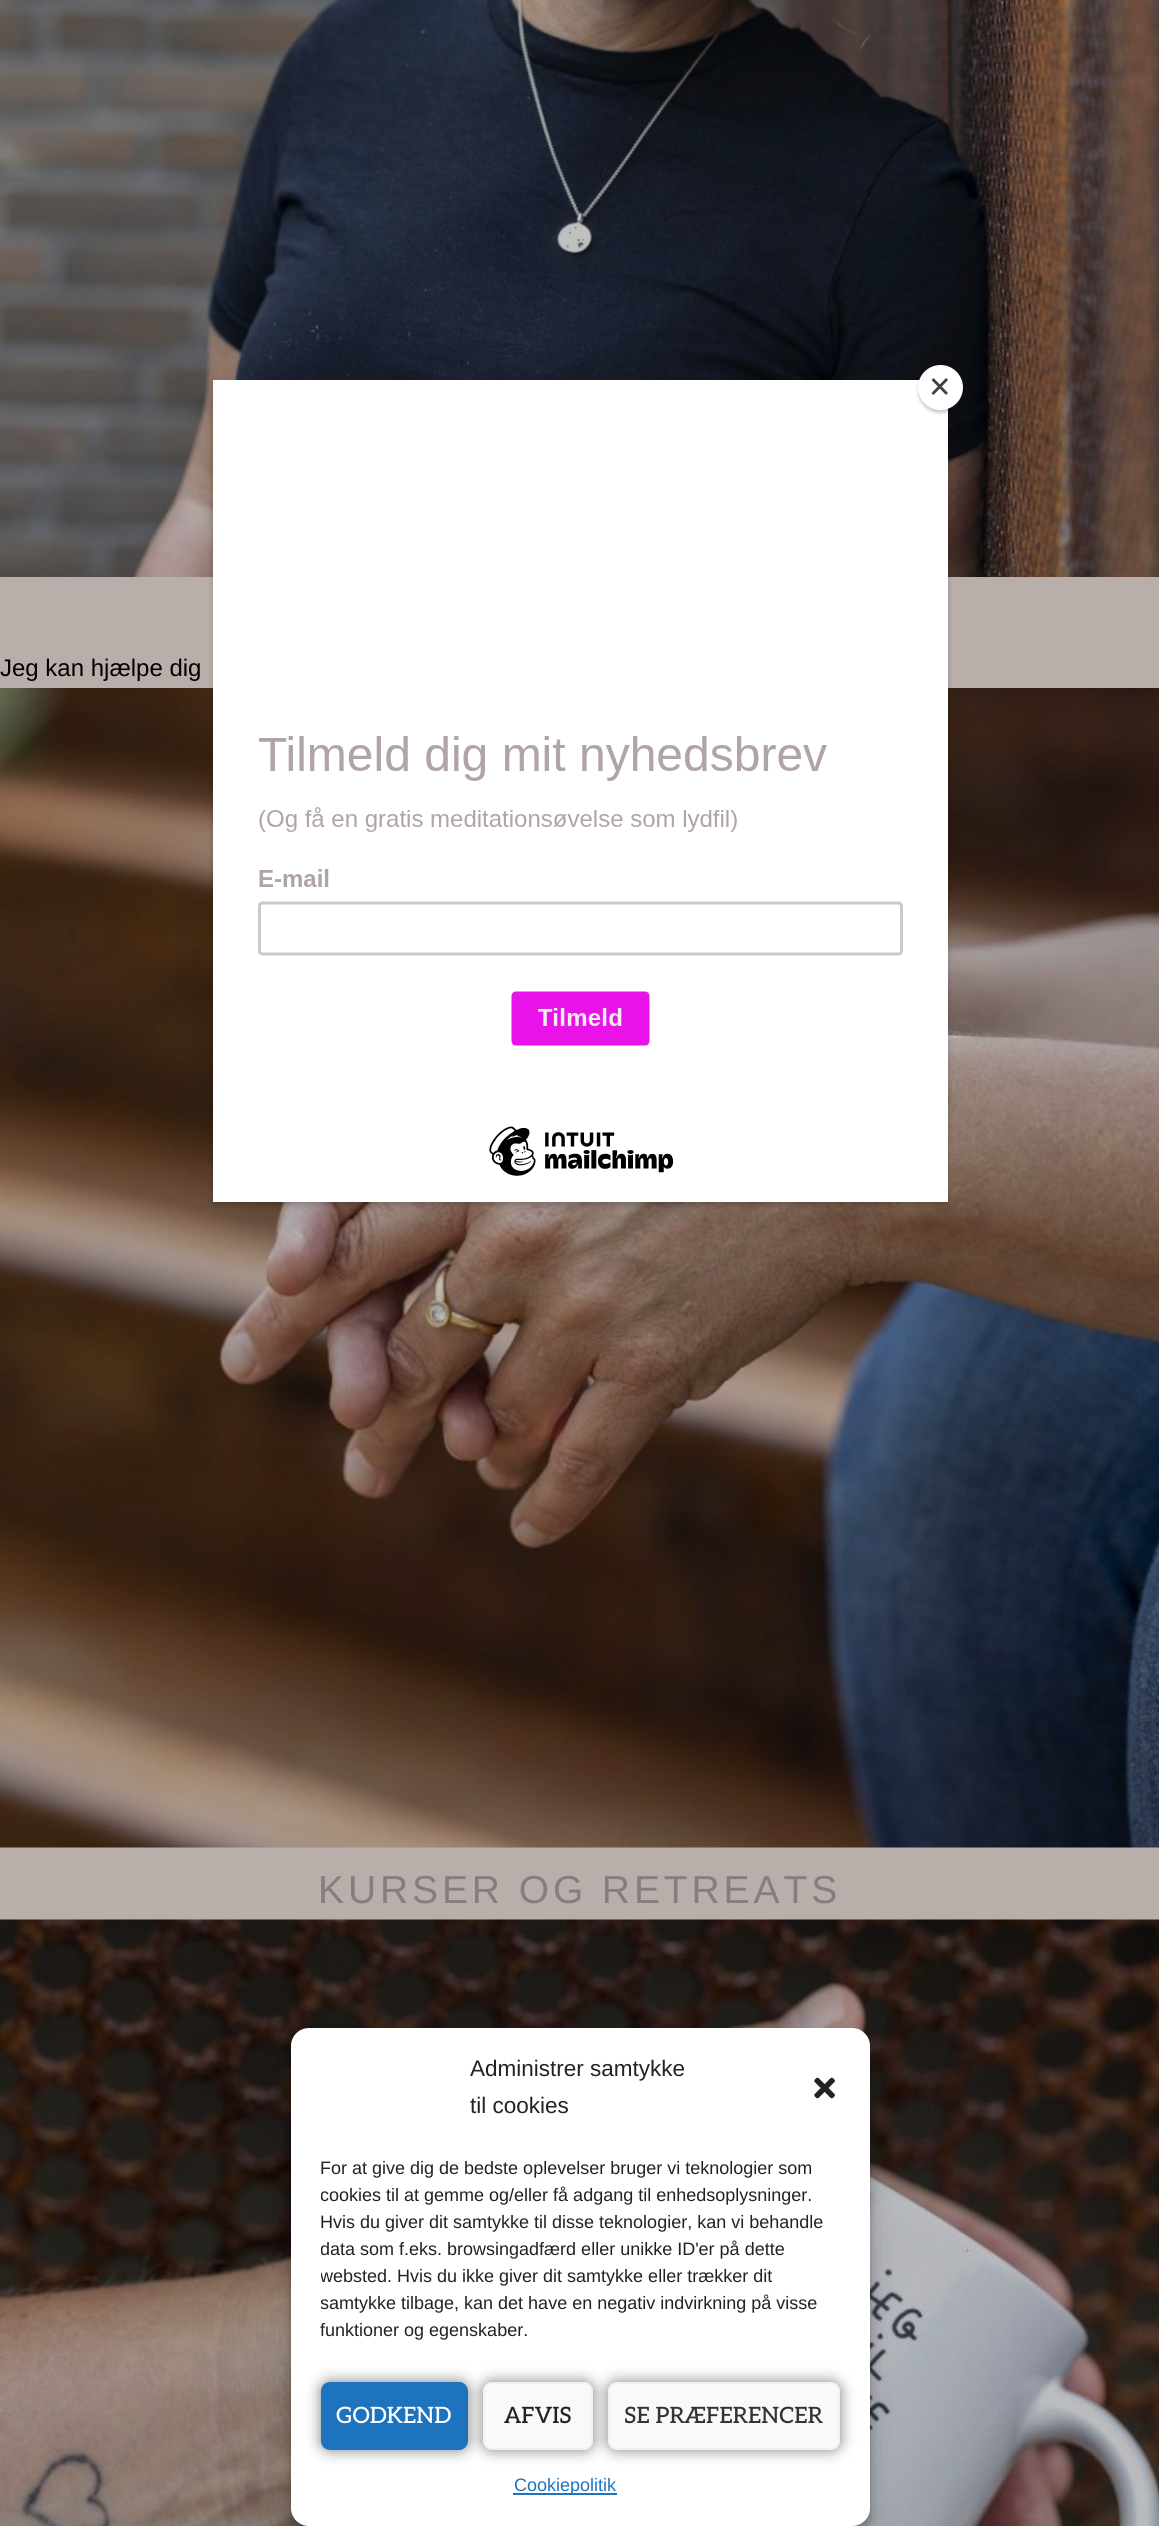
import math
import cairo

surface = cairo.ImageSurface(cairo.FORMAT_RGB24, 1159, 2526)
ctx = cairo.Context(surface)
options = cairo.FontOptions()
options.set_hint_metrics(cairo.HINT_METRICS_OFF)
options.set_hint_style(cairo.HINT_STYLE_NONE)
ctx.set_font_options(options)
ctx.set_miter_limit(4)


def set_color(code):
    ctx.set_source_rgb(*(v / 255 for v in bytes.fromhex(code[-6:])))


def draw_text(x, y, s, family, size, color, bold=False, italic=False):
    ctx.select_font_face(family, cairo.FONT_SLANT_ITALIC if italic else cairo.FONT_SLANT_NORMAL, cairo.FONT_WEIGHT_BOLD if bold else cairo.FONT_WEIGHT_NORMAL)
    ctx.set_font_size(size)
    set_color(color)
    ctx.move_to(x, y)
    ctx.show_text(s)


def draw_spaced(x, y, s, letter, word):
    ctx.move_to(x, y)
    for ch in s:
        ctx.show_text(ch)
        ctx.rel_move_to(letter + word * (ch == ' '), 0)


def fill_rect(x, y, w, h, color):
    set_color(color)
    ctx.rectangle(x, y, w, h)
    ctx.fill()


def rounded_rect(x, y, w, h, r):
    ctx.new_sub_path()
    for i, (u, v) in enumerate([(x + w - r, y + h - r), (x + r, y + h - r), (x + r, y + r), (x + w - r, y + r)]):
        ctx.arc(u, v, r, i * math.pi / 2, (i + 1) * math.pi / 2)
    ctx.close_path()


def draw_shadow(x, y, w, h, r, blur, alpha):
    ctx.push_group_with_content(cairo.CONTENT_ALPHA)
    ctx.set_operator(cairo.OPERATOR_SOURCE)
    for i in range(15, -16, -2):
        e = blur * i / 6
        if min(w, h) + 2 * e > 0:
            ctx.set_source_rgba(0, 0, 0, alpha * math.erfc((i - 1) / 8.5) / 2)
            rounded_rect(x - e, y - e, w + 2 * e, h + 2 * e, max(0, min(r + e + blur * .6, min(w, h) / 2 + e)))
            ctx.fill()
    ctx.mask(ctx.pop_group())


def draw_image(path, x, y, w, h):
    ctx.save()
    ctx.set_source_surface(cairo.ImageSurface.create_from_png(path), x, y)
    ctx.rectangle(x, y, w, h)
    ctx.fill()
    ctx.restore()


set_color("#b8afab")
ctx.paint()
draw_image("assets/img2.png", 0, 0, 1159, 577)
draw_image("assets/img3.png", 0, 688, 1159, 1160)
set_color("#000000")
draw_shadow(213, 383, 735, 822, 0, 3, 0.2)
draw_image("assets/img1.png", 213, 380, 735, 822)
draw_shadow(918, 368, 45, 45, 22.5, 1.5, 0.2)
set_color("#ffffff")
ctx.arc(940.5, 387.5, 22.5, 0, 2 * math.pi)
ctx.fill()
set_color("#414141")
ctx.new_path()
ctx.move_to(946, 378)
ctx.line_to(948, 380)
ctx.line_to(933.5, 395)
ctx.line_to(931.5, 393)
ctx.close_path()
ctx.fill()
ctx.new_path()
ctx.move_to(931.5, 380)
ctx.line_to(933.5, 378)
ctx.line_to(948, 393)
ctx.line_to(946, 395)
ctx.close_path()
ctx.fill()
draw_text(0, 676, "Jeg kan hjælpe dig", "Liberation Sans", 24, "#000000")
ctx.set_font_size(39)
set_color("#867d81")
draw_spaced(318, 1903, "KURSER OG RETREATS", 3.9, 0)
draw_image("assets/img4.png", 0, 1919, 1159, 607)
set_color("#000000")
draw_shadow(291, 2037, 579, 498, 18, 4.5, 0.23)
draw_shadow(291, 2043, 579, 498, 18, 15, 0.19)
set_color("#ffffff")
rounded_rect(291, 2028, 579, 498, 18)
ctx.fill()
draw_text(470, 2076, "Administrer samtykke", "Liberation Sans", 22.5, "#222222")
draw_text(470, 2113, "til cookies", "Liberation Sans", 22.5, "#222222")
draw_image("assets/img5.png", 814, 2077, 21, 22)
draw_text(320, 2174, "For at give dig de bedste oplevelser bruger vi teknologier som", "Liberation Sans", 18, "#222222")
ctx.save()
ctx.rectangle(321, 2156, 519, 196)
ctx.clip()
draw_text(320, 2201, "cookies til at gemme og/eller få adgang til enhedsoplysninger.", "Liberation Sans", 18, "#222222")
ctx.restore()
draw_text(320, 2228, "Hvis du giver dit samtykke til disse teknologier, kan vi behandle", "Liberation Sans", 18, "#222222")
ctx.save()
ctx.rectangle(321, 2156, 519, 196)
ctx.clip()
draw_text(320, 2255, "data som f.eks. browsingadfærd eller unikke ID'er på dette", "Liberation Sans", 18, "#222222")
draw_text(320, 2282, "websted. Hvis du ikke giver dit samtykke eller trækker dit", "Liberation Sans", 18, "#222222")
draw_text(320, 2309, "samtykke tilbage, kan det have en negativ indvirkning på visse", "Liberation Sans", 18, "#222222")
ctx.restore()
draw_text(320, 2336, "funktioner og egenskaber.", "Liberation Sans", 18, "#222222")
set_color("#000000")
draw_shadow(321, 2382, 147, 68, 9, 7.5, 0.5)
set_color("#1e73be")
rounded_rect(322, 2383, 145, 66, 8)
ctx.fill_preserve()
ctx.stroke()
draw_text(336, 2423, "GODKEND", "Aleo Medium", 22.5, "#ffffff")
set_color("#000000")
draw_shadow(483, 2382, 110, 68, 9, 7.5, 0.5)
set_color("#f9f9f9")
rounded_rect(484, 2383, 108, 66, 8)
ctx.fill_preserve()
set_color("#f2f2f2")
ctx.stroke()
draw_text(504, 2423, "AFVIS", "Aleo Medium", 22.5, "#222222")
set_color("#000000")
draw_shadow(608, 2382, 232, 68, 9, 7.5, 0.5)
set_color("#f9f9f9")
rounded_rect(609, 2383, 230, 66, 8)
ctx.fill_preserve()
set_color("#f2f2f2")
ctx.stroke()
draw_text(624, 2423, "SE PRÆFERENCER", "Aleo Medium", 22.5, "#333333")
fill_rect(513, 2493, 104, 2, "#1e73be")
draw_text(514, 2491, "Cookiepolitik", "Liberation Sans", 18, "#1e73be")
surface.write_to_png("output.png")
